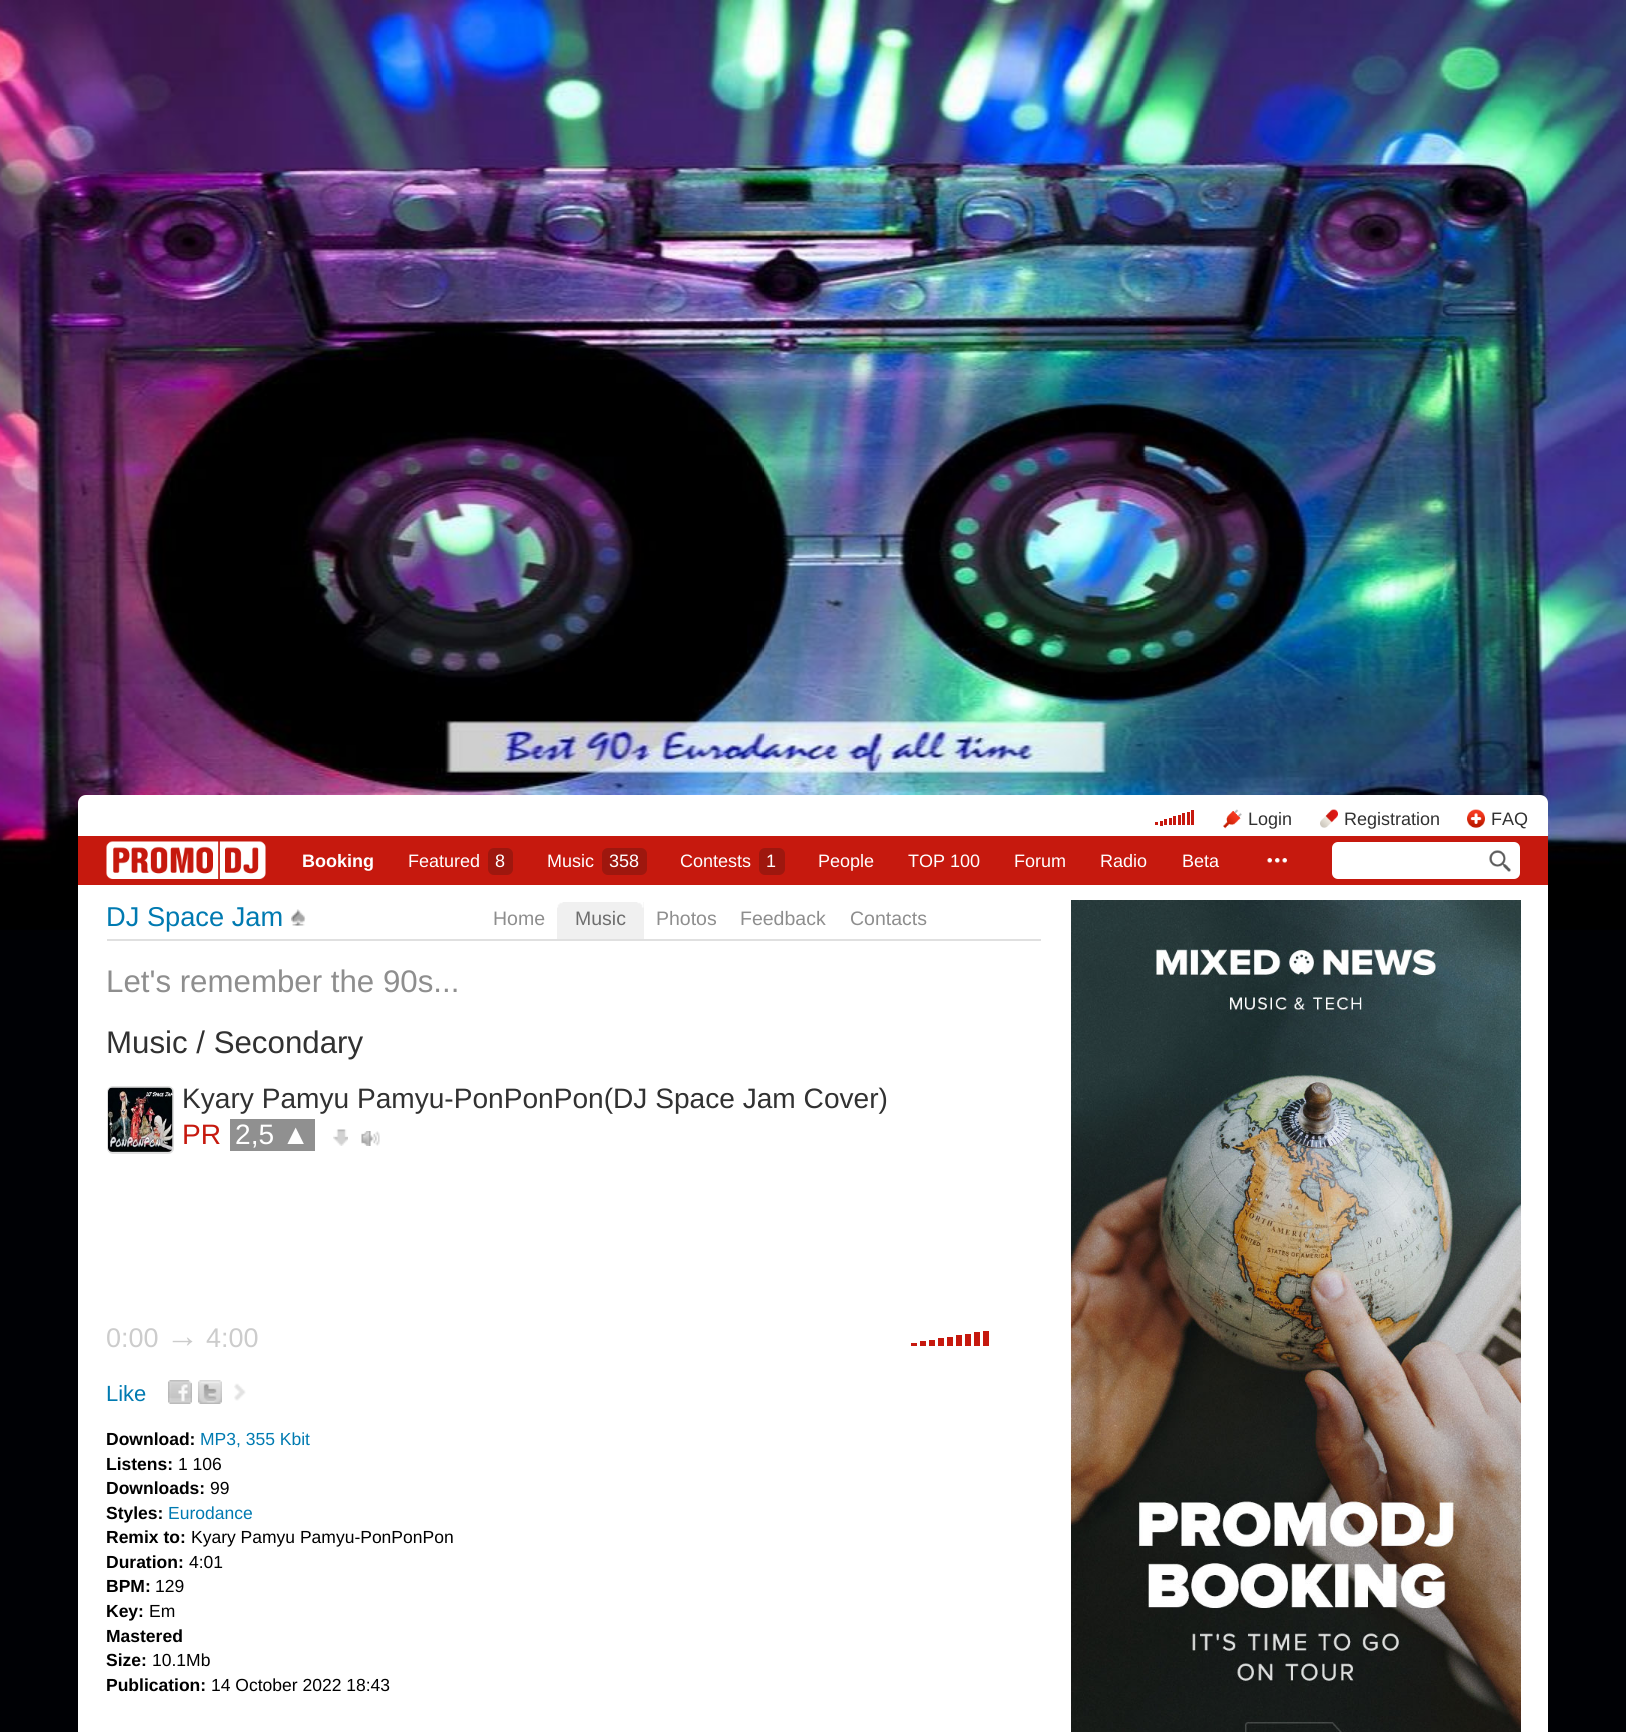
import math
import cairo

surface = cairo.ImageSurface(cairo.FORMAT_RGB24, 1626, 1732)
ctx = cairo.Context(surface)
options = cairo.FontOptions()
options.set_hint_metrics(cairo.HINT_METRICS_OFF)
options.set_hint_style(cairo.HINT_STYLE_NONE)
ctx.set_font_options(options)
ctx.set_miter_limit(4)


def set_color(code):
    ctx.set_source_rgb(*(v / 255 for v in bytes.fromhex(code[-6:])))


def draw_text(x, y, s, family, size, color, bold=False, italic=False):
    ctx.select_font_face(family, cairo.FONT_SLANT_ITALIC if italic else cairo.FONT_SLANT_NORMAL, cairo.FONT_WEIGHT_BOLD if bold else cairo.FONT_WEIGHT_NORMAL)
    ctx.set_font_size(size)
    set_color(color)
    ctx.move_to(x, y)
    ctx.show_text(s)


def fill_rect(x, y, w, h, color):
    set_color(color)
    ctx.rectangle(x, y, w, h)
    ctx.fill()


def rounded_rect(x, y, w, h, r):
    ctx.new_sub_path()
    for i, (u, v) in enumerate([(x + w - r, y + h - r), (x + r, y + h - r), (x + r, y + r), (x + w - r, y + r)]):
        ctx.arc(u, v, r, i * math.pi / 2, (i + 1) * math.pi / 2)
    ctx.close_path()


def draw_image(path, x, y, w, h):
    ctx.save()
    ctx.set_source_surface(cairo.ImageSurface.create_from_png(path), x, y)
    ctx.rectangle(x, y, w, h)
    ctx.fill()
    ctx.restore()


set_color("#000105")
ctx.paint()
draw_image("assets/img1.png", 0, 0, 1626, 930)
set_color("#ffffff")
ctx.new_path()
ctx.move_to(86, 795)
ctx.line_to(1540, 795)
ctx.curve_to(1544.5, 795, 1548, 798.5, 1548, 803)
ctx.line_to(1548, 836)
ctx.line_to(78, 836)
ctx.line_to(78, 803)
ctx.curve_to(78, 798.5, 81.5, 795, 86, 795)
ctx.close_path()
ctx.fill()
fill_rect(1155, 822, 3, 3, "#c6190e")
fill_rect(1160, 821, 3, 5, "#c6190e")
fill_rect(1164, 819, 3, 6, "#c6190e")
fill_rect(1169, 818, 3, 7, "#c6190e")
fill_rect(1173, 816, 3, 9, "#c6190e")
fill_rect(1178, 815, 3, 10, "#c6190e")
fill_rect(1182, 813, 3, 12, "#c6190e")
fill_rect(1187, 812, 3, 13, "#c6190e")
fill_rect(1191, 810, 3, 15, "#c6190e")
draw_image("assets/img2.png", 1223, 809, 19, 20)
draw_text(1248, 825, "Login", "Liberation Sans", 18, "#313131")
draw_image("assets/img3.png", 1320, 809, 18, 19)
draw_text(1344, 825, "Registration", "Liberation Sans", 18, "#313131")
draw_image("assets/img4.png", 1467, 809, 18, 19)
draw_text(1491, 825, "FAQ", "Liberation Sans", 18, "#313131")
fill_rect(78, 836, 1470, 49, "#c6190e")
draw_image("assets/img5.png", 106, 841, 160, 38)
draw_text(302, 867, "Booking", "Liberation Sans", 18, "#ffffff", bold=True)
draw_text(408, 867, "Featured", "Liberation Sans", 18, "#ffffff")
set_color("#9e170e")
rounded_rect(488, 848, 25, 27, 6)
ctx.fill()
draw_text(495, 867, "8", "Liberation Sans", 18, "#ffffff")
draw_text(547, 867, "Music", "Liberation Sans", 18, "#ffffff")
set_color("#9e170e")
rounded_rect(602, 848, 45, 27, 6)
ctx.fill()
draw_text(609, 867, "358", "Liberation Sans", 18, "#ffffff")
draw_text(680, 867, "Сontests", "Liberation Sans", 18, "#ffffff")
set_color("#9e170e")
rounded_rect(759, 848, 26, 27, 6)
ctx.fill()
draw_text(766, 867, "1", "Liberation Sans", 18, "#ffffff")
draw_text(818, 867, "People", "Liberation Sans", 18, "#ffffff")
draw_text(908, 867, "TOP 100", "Liberation Sans", 18, "#ffffff")
draw_text(1014, 867, "Forum", "Liberation Sans", 18, "#ffffff")
draw_text(1100, 867, "Radio", "Liberation Sans", 18, "#ffffff")
draw_text(1182, 867, "Beta", "Liberation Sans", 18, "#ffffff")
draw_image("assets/img6.png", 1267, 858, 20, 5)
rounded_rect(1332, 842, 188, 37, 6)
ctx.fill()
draw_image("assets/img7.png", 1489, 850, 22, 22)
fill_rect(78, 885, 1470, 847, "#ffffff")
fill_rect(107, 939, 934, 2, "#e0e0e0")
draw_text(106, 926, "DJ Space Jam", "Liberation Sans", 27.25, "#007ab1")
draw_image("assets/img8.png", 291, 909, 15, 17)
draw_text(493, 925, "Home", "Liberation Sans", 19.5, "#8e8e8e")
fill_rect(557, 902, 87, 37, "#f0f0f0")
draw_image("assets/img9.png", 557, 902, 6, 6)
draw_image("assets/img10.png", 637, 902, 7, 6)
draw_text(575, 925, "Music", "Liberation Sans", 19.5, "#6e6e6e")
draw_text(656, 925, "Photos", "Liberation Sans", 19.5, "#8e8e8e")
draw_text(740, 925, "Feedback", "Liberation Sans", 19.5, "#8e8e8e")
draw_text(850, 925, "Contacts", "Liberation Sans", 19.5, "#8e8e8e")
draw_text(106, 992, "Let's remember the 90s...", "Liberation Sans", 31.25, "#8e8e8e")
draw_text(106, 1053, "Music / Secondary", "Liberation Sans", 31.25, "#313131")
rounded_rect(108, 1087, 65, 66, 5)
set_color("#e0e0e0")
ctx.stroke()
draw_image("assets/img11.png", 108, 1087, 65, 65)
draw_text(182, 1108, "Kyary Pamyu Pamyu-PonPonPon(DJ Space Jam Cover)", "Liberation Sans", 28.1, "#313131")
draw_text(182, 1144, "PR", "Liberation Sans", 28.1, "#c6190e")
fill_rect(230, 1119, 85, 32, "#909090")
draw_text(235, 1144, "2,5 ▲", "Liberation Sans", 28.1, "#ffffff")
draw_image("assets/img12.png", 333, 1129, 15, 17)
draw_image("assets/img13.png", 361, 1131, 19, 15)
draw_text(106, 1347, "0:00", "Liberation Sans", 27, "#cccccc")
draw_text(166, 1347, "→", "Liberation Sans", 33, "#cccccc")
draw_text(206, 1347, "4:00", "Liberation Sans", 27, "#cccccc")
fill_rect(911, 1343, 6, 3, "#c6190e")
fill_rect(920, 1341, 6, 5, "#c6190e")
fill_rect(929, 1340, 6, 6, "#c6190e")
fill_rect(938, 1338, 6, 8, "#c6190e")
fill_rect(947, 1337, 6, 9, "#c6190e")
fill_rect(956, 1335, 6, 11, "#c6190e")
fill_rect(965, 1334, 6, 12, "#c6190e")
fill_rect(974, 1332, 6, 14, "#c6190e")
fill_rect(983, 1331, 6, 15, "#c6190e")
draw_text(106, 1401, "Like", "Liberation Sans", 22, "#007ab1")
draw_image("assets/img14.png", 168, 1380, 24, 24)
draw_image("assets/img15.png", 198, 1380, 24, 24)
draw_image("assets/img16.png", 234, 1383, 12, 18)
draw_text(106, 1445, "Download:", "Liberation Sans", 17.5, "#000000", bold=True)
draw_text(200, 1445, "MP3, 355 Kbit", "Liberation Sans", 17.5, "#007ab1")
draw_text(106, 1470, "Listens:", "Liberation Sans", 17.5, "#000000", bold=True)
draw_text(178, 1470, "1 106", "Liberation Sans", 17.5, "#000000")
draw_text(106, 1494, "Downloads:", "Liberation Sans", 17.5, "#000000", bold=True)
draw_text(210, 1494, "99", "Liberation Sans", 17.5, "#000000")
draw_text(106, 1519, "Styles:", "Liberation Sans", 17.5, "#000000", bold=True)
draw_text(168, 1519, "Eurodance", "Liberation Sans", 17.5, "#007ab1")
draw_text(106, 1543, "Remix to:", "Liberation Sans", 17.5, "#000000", bold=True)
draw_text(191, 1543, "Kyary Pamyu Pamyu-PonPonPon", "Liberation Sans", 17.5, "#000000")
draw_text(106, 1568, "Duration:", "Liberation Sans", 17.5, "#000000", bold=True)
draw_text(189, 1568, "4:01", "Liberation Sans", 17.5, "#000000")
draw_text(106, 1592, "BPM:", "Liberation Sans", 17.5, "#000000", bold=True)
draw_text(155, 1592, "129", "Liberation Sans", 17.5, "#000000")
draw_text(106, 1617, "Key:", "Liberation Sans", 17.5, "#000000", bold=True)
draw_text(149, 1617, "Em", "Liberation Sans", 17.5, "#000000")
draw_text(106, 1642, "Mastered", "Liberation Sans", 17.5, "#000000", bold=True)
draw_text(106, 1666, "Size:", "Liberation Sans", 17.5, "#000000", bold=True)
draw_text(152, 1666, "10.1Mb", "Liberation Sans", 17.5, "#000000")
draw_text(106, 1691, "Publication:", "Liberation Sans", 17.5, "#000000", bold=True)
draw_text(211, 1691, "14 October 2022 18:43", "Liberation Sans", 17.5, "#000000")
draw_image("assets/img17.png", 1071, 900, 450, 832)
surface.write_to_png("output.png")
